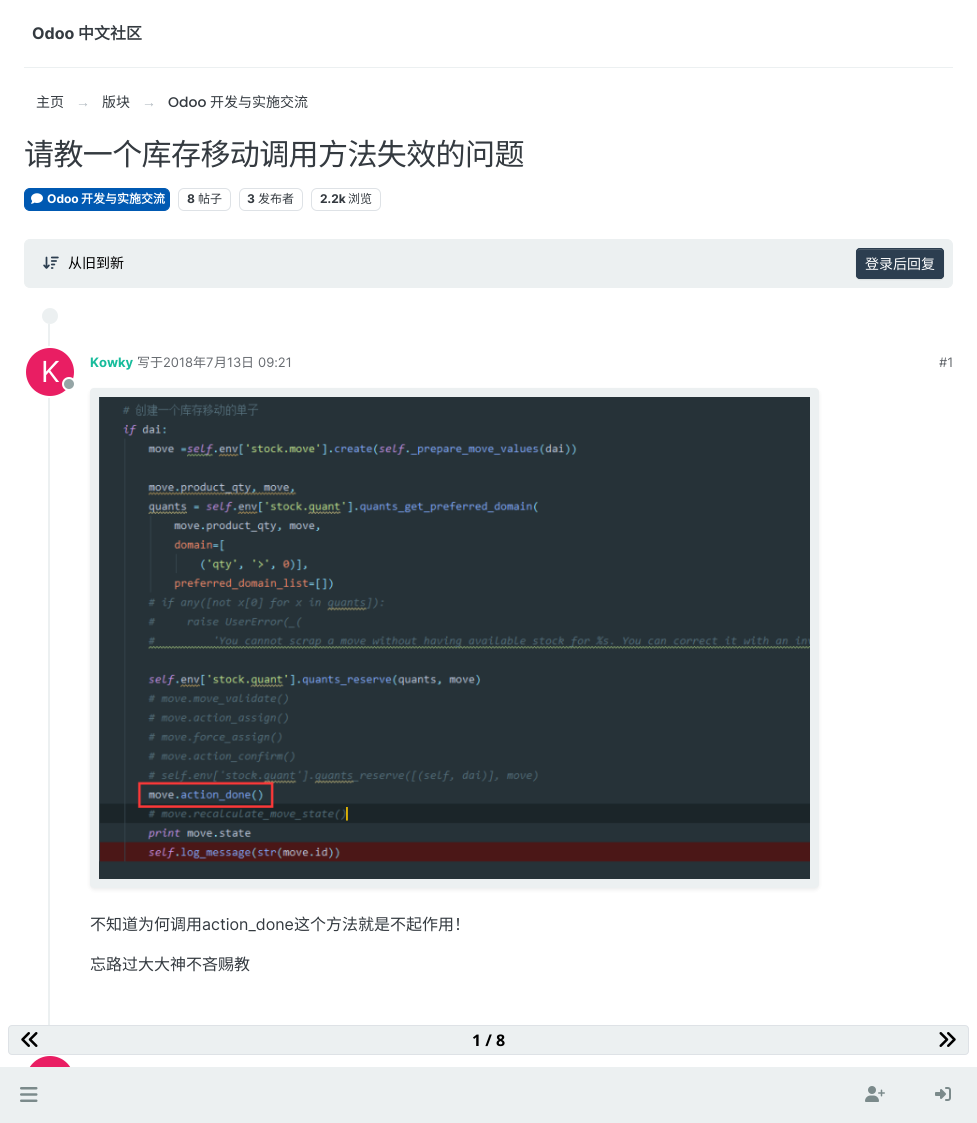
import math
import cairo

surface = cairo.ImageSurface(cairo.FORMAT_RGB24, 977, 1123)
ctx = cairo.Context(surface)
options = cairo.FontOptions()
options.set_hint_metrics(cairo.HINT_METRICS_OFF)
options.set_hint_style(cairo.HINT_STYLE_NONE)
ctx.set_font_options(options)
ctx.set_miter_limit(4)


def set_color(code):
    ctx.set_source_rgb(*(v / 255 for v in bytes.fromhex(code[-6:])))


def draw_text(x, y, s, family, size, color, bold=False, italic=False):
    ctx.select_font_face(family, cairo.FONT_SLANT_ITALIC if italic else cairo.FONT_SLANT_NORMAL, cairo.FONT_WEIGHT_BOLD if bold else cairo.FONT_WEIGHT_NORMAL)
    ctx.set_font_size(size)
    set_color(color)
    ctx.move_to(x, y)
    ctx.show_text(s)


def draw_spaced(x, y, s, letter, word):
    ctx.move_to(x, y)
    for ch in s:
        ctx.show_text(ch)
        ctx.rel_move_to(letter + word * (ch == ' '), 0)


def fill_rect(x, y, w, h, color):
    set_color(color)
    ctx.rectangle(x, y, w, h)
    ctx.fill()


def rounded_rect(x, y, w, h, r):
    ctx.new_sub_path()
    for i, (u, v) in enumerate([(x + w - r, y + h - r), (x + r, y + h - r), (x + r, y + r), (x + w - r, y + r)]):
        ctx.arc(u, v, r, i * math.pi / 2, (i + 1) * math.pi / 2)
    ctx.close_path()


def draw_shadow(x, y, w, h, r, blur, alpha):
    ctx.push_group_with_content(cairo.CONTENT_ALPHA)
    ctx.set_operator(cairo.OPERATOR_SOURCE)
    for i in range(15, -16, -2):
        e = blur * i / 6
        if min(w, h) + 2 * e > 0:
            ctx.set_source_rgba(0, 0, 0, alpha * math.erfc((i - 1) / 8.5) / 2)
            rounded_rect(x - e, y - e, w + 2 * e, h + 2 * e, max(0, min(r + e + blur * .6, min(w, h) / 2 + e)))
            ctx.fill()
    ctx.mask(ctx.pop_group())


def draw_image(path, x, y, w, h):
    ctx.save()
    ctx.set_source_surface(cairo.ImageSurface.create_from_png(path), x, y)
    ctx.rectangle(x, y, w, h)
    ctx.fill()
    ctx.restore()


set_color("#ffffff")
ctx.paint()
fill_rect(24, 67, 929, 1, "#ecf0f1")
draw_text(32, 39, "Odoo", "Inter", 16, "#343a40", bold=True)
draw_text(78, 39, "中文社区", "Noto Sans CJK SC", 16, "#343a40", bold=True)
draw_text(36, 107, "主页", "Noto Sans CJK SC", 14, "#343a40")
draw_text(76, 107, "→", "Liberation Sans", 14, "#b4bcc2")
draw_text(102, 107, "版块", "Noto Sans CJK SC", 14, "#343a40")
draw_text(142, 107, "→", "Liberation Sans", 14, "#b4bcc2")
draw_text(168, 107, "Odoo", "Poppins Medium", 14, "#343a40")
draw_text(210, 107, "开发与实施交流", "Noto Sans CJK SC", 14, "#343a40")
ctx.set_font_size(30)
draw_spaced(24, 165, "请教一个库存移动调用方法失效的问题", -0.6, 0)
set_color("#0059b2")
rounded_rect(24.5, 188.5, 145, 22, 5.5)
ctx.fill_preserve()
ctx.set_line_width(1)
ctx.stroke()
draw_image("assets/img1.png", 31, 193, 12, 11)
draw_text(47, 203, "Odoo", "Inter", 12, "#ffffff", bold=True)
draw_text(81, 203, "开发与实施交流", "Noto Sans CJK SC", 12, "#ffffff", bold=True)
rounded_rect(178.5, 188.5, 52, 22, 5.5)
set_color("#dee2e6")
ctx.stroke()
draw_text(187, 203, "8", "Inter", 12, "#343a40", bold=True)
draw_text(198, 203, "帖子", "Noto Sans CJK SC", 12, "#343a40")
rounded_rect(239.5, 188.5, 63, 22, 5.5)
set_color("#dee2e6")
ctx.stroke()
draw_text(247, 203, "3", "Inter", 12, "#343a40", bold=True)
draw_text(258, 203, "发布者", "Noto Sans CJK SC", 12, "#343a40")
rounded_rect(311.5, 188.5, 69, 22, 5.5)
set_color("#dee2e6")
ctx.stroke()
draw_text(320, 203, "2.2k", "Inter", 12, "#343a40", bold=True)
draw_text(348, 203, "浏览", "Noto Sans CJK SC", 12, "#343a40")
set_color("#ecf0f1")
rounded_rect(24.5, 239.5, 928, 48, 5.5)
ctx.fill_preserve()
ctx.stroke()
draw_image("assets/img2.png", 43, 256, 16, 13)
draw_text(68, 268, "从旧到新", "Noto Sans CJK SC", 14, "#000000")
set_color("#000000")
draw_shadow(856, 249, 88, 31, 4, 0.5, 0.07)
set_color("#2c3e50")
rounded_rect(856, 248, 88, 31, 4)
ctx.fill()
set_color("#4c5b6a")
ctx.new_path()
ctx.move_to(860, 250)
ctx.line_to(940, 250)
ctx.curve_to(942, 250, 943, 251, 943, 253)
ctx.curve_to(943, 245, 930, 249, 927, 249)
ctx.line_to(873, 249)
ctx.curve_to(870, 249, 857, 245, 857, 253)
ctx.curve_to(857, 251, 858, 250, 860, 250)
ctx.close_path()
ctx.fill()
rounded_rect(856.5, 248.5, 87, 30, 3.5)
set_color("#2c3e50")
ctx.stroke()
draw_text(865, 269, "登录后回复", "Noto Sans CJK SC", 14, "#ffffff")
fill_rect(48, 324, 2, 708, "#ecf0f1")
ctx.new_path()
ctx.arc(50, 316, 8, 0, 2 * math.pi)
ctx.fill()
ctx.arc(50, 372, 25, 0, 2 * math.pi)
set_color("#ffffff")
ctx.set_line_width(2)
ctx.stroke()
set_color("#e91e63")
ctx.arc(50, 372, 24, 0, 2 * math.pi)
ctx.fill()
draw_text(41, 382, "K", "Inter", 29, "#ffffff")
set_color("#95a5a6")
ctx.new_path()
ctx.arc(69, 384, 6, 0, 2 * math.pi)
ctx.fill_preserve()
set_color("#ffffff")
ctx.stroke()
draw_text(90, 367, "Kowky", "Inter", 13, "#18bc9c", bold=True)
draw_text(137, 367, "写于", "Noto Sans CJK SC", 13, "#676b70")
draw_text(163, 367, "2018", "Inter", 13, "#676b70")
draw_text(193, 367, "年", "Noto Sans CJK SC", 13, "#676b70")
draw_text(206, 367, "7", "Inter", 13, "#676b70")
draw_text(214, 367, "月", "Noto Sans CJK SC", 13, "#676b70")
draw_text(227, 367, "13", "Inter", 13, "#676b70")
draw_text(241, 367, "日", "Noto Sans CJK SC", 13, "#676b70")
draw_text(258, 367, "09:21", "Inter", 13, "#676b70")
draw_text(939, 367, "#1", "Inter", 13, "#676b70")
set_color("#000000")
draw_shadow(90, 390, 729, 500, 4, 2, 0.07)
set_color("#ecf0f1")
rounded_rect(90.5, 388.5, 728, 499, 3.5)
ctx.fill_preserve()
ctx.set_line_width(1)
ctx.stroke()
draw_image("assets/img3.png", 99, 397, 711, 482)
draw_text(90, 930, "不知道为何调用", "Noto Sans CJK SC", 16, "#343a40")
draw_text(202, 930, "action_done", "Inter", 16, "#343a40")
draw_text(294, 930, "这个方法就是不起作用！", "Noto Sans CJK SC", 16, "#343a40")
draw_text(90, 970, "忘路过大大神不吝赐教", "Noto Sans CJK SC", 16, "#343a40")
set_color("#e91e63")
ctx.new_path()
ctx.arc(50, 1080, 24, 0, 2 * math.pi)
ctx.fill()
set_color("#ecf0f1")
rounded_rect(8.5, 1025.5, 960, 29, 3.5)
ctx.fill_preserve()
set_color("#dee2e6")
ctx.stroke()
draw_image("assets/img4.png", 21, 1032, 17, 15)
draw_text(472, 1046, "1 / 8", "Noto Sans", 16, "#000000", bold=True)
draw_image("assets/img5.png", 939, 1032, 17, 15)
fill_rect(0, 1067, 977, 56, "#ecf0f1")
draw_image("assets/img6.png", 20, 1087, 18, 15)
draw_image("assets/img7.png", 865, 1086, 20, 16)
draw_image("assets/img8.png", 935, 1087, 16, 14)
surface.write_to_png("output.png")
